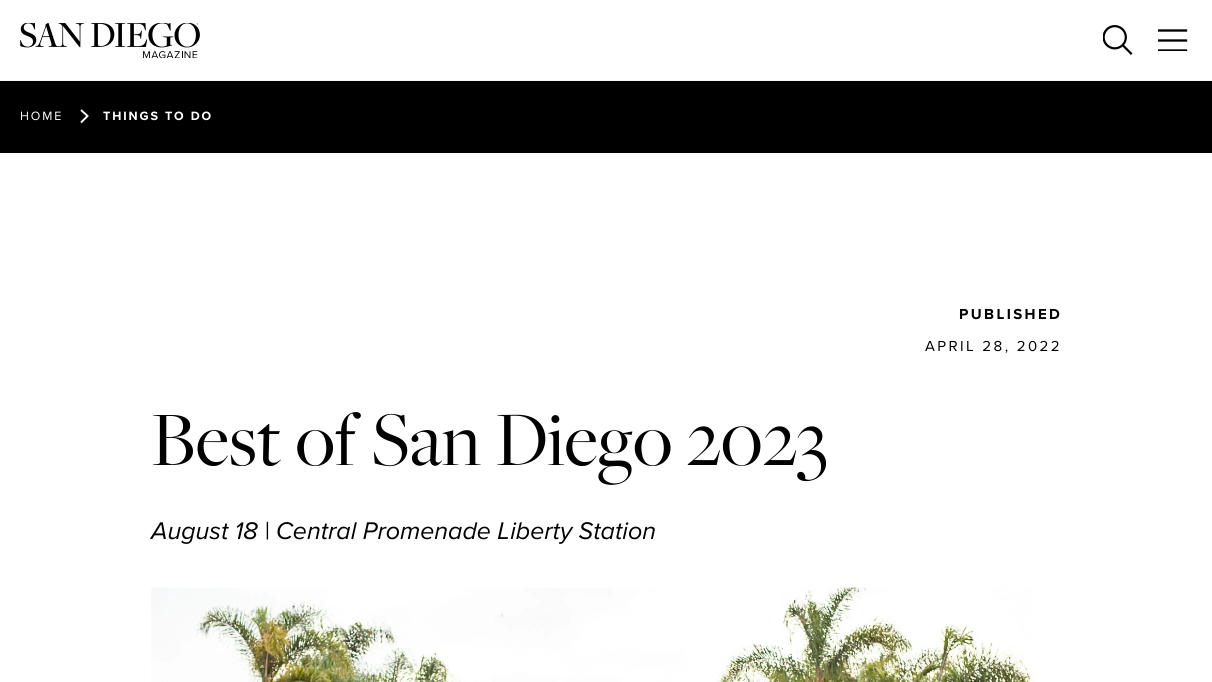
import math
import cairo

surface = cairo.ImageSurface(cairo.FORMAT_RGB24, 1212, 682)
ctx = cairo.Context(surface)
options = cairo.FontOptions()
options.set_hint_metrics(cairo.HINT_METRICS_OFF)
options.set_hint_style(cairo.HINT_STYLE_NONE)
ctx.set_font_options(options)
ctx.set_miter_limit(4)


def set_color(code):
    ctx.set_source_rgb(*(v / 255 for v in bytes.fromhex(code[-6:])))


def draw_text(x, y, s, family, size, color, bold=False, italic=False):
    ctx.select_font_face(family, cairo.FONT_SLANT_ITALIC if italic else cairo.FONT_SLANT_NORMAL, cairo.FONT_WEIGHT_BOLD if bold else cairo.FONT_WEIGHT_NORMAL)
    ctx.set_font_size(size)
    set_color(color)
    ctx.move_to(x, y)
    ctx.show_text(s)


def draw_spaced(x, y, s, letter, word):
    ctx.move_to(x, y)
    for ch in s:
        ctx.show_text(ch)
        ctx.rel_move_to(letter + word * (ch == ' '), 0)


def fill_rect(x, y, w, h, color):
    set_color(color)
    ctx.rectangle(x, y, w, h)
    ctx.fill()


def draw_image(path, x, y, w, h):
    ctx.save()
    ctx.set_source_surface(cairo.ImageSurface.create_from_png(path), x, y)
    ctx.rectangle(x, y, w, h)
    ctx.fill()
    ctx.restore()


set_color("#ffffff")
ctx.paint()
fill_rect(0, 80, 1212, 1, "#f8f8f8")
draw_image("assets/img1.png", 20, 23, 180, 35)
draw_image("assets/img2.png", 1103, 25, 30, 30)
ctx.save()
ctx.rectangle(1158, 29, 30, 22)
ctx.clip()
ctx.new_path()
ctx.move_to(1159, 30.5)
ctx.line_to(1186, 30.5)
ctx.move_to(1159, 40.5)
ctx.line_to(1186, 40.5)
ctx.move_to(1159, 50.5)
ctx.line_to(1186, 50.5)
set_color("#000000")
ctx.set_line_width(2.3)
ctx.set_line_cap(cairo.LINE_CAP_SQUARE)
ctx.set_line_join(cairo.LINE_JOIN_ROUND)
ctx.stroke()
ctx.restore()
fill_rect(0, 81, 1212, 72, "#000000")
ctx.select_font_face("Proxima Nova")
ctx.set_font_size(12.5)
set_color("#ffffff")
draw_spaced(20, 120, "HOME", 1.9, 0)
ctx.new_path()
ctx.move_to(81, 110)
ctx.line_to(87.5, 116)
ctx.line_to(81, 122.5)
ctx.set_line_width(1.9)
ctx.stroke()
ctx.select_font_face("Proxima Nova", cairo.FONT_SLANT_NORMAL, cairo.FONT_WEIGHT_BOLD)
draw_spaced(103, 120, "THINGS TO DO", 1.9, 0)
ctx.set_font_size(15)
set_color("#000000")
draw_spaced(959, 319, "PUBLISHED", 2.4, 0)
ctx.select_font_face("Proxima Nova")
draw_spaced(925, 351, "APRIL 28, 2022", 2.4, 0)
draw_text(151, 465, "Best of San Diego 2023", "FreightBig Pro", 80, "#000000")
draw_text(151, 539, "August 18 | Central Promenade Liberty Station", "Proxima Nova", 25, "#000000", italic=True)
draw_image("assets/img3.png", 151, 587, 883, 95)
surface.write_to_png("output.png")
